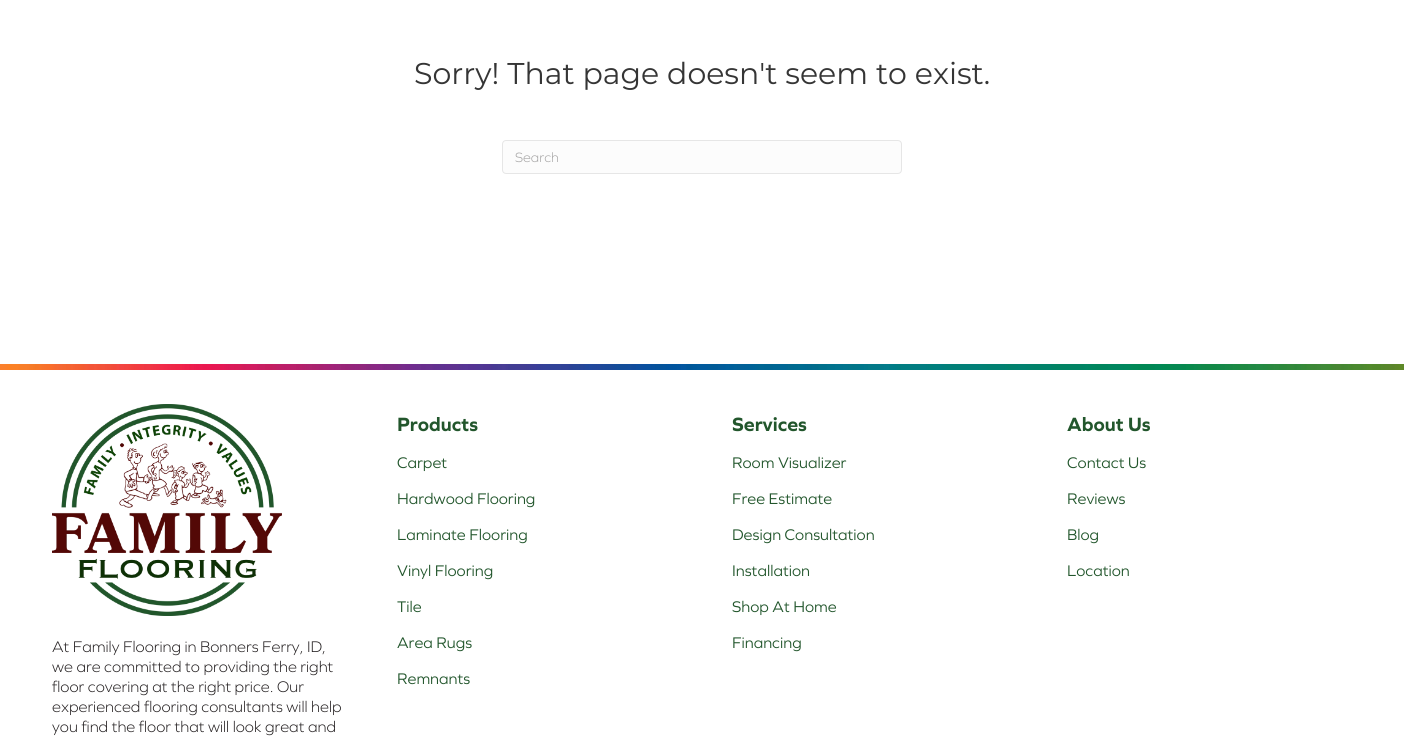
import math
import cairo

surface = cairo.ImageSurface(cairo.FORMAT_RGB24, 1404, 741)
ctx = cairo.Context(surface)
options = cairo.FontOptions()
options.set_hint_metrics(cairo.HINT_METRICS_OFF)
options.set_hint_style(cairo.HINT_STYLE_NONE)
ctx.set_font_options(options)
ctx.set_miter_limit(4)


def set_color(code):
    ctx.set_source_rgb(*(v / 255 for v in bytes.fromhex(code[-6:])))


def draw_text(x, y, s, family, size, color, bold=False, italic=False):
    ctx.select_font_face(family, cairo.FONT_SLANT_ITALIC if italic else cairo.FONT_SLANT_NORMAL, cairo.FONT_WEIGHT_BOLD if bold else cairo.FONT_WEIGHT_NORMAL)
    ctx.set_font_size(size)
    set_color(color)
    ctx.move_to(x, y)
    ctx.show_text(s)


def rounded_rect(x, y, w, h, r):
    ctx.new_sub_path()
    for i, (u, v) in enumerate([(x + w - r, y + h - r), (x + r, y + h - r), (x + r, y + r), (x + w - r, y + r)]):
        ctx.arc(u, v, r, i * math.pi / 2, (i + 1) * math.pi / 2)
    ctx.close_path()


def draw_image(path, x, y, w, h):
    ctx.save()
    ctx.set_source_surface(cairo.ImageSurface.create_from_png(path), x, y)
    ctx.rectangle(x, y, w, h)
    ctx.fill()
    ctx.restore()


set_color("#ffffff")
ctx.paint()
draw_text(414, 84, "Sorry! That page doesn't seem to exist.", "Montserrat", 30, "#353535")
set_color("#fcfcfc")
rounded_rect(502.5, 140.5, 399, 33, 3.5)
ctx.fill_preserve()
set_color("#e6e6e6")
ctx.set_line_width(1)
ctx.stroke()
draw_text(515, 162, "Search", "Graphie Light", 14, "#a5a4a4")
draw_image("assets/img1.png", 0, 364, 1404, 6)
draw_text(397, 431, "Products", "Graphie", 20, "#22562c", bold=True)
draw_text(397, 468, "Carpet", "Graphie", 16, "#22562c")
draw_text(397, 504, "Hardwood Flooring", "Graphie", 16, "#22562c")
draw_text(397, 540, "Laminate Flooring", "Graphie", 16, "#22562c")
draw_text(397, 576, "Vinyl Flooring", "Graphie", 16, "#22562c")
draw_text(397, 612, "Tile", "Graphie", 16, "#22562c")
draw_text(397, 648, "Area Rugs", "Graphie", 16, "#22562c")
draw_text(397, 684, "Remnants", "Graphie", 16, "#22562c")
draw_text(732, 431, "Services", "Graphie", 20, "#22562c", bold=True)
draw_text(732, 468, "Room Visualizer", "Graphie", 16, "#22562c")
draw_text(732, 504, "Free Estimate", "Graphie", 16, "#22562c")
draw_text(732, 540, "Design Consultation", "Graphie", 16, "#22562c")
draw_text(732, 576, "Installation", "Graphie", 16, "#22562c")
draw_text(732, 612, "Shop At Home", "Graphie", 16, "#22562c")
draw_text(732, 648, "Financing", "Graphie", 16, "#22562c")
draw_text(1067, 431, "About Us", "Graphie", 20, "#22562c", bold=True)
draw_text(1067, 468, "Contact Us", "Graphie", 16, "#22562c")
draw_text(1067, 504, "Reviews", "Graphie", 16, "#22562c")
draw_text(1067, 540, "Blog", "Graphie", 16, "#22562c")
draw_text(1067, 576, "Location", "Graphie", 16, "#22562c")
draw_image("assets/img2.png", 52, 404, 230, 212)
draw_text(52, 652, "At Family Flooring in Bonners Ferry, ID,", "Graphie Light", 16, "#231f20")
draw_text(52, 672, "we are committed to providing the right", "Graphie Light", 16, "#231f20")
draw_text(52, 692, "floor covering at the right price. Our", "Graphie Light", 16, "#231f20")
draw_text(52, 712, "experienced flooring consultants will help", "Graphie Light", 16, "#231f20")
draw_text(52, 732, "you find the floor that will look great and", "Graphie Light", 16, "#231f20")
surface.write_to_png("output.png")
